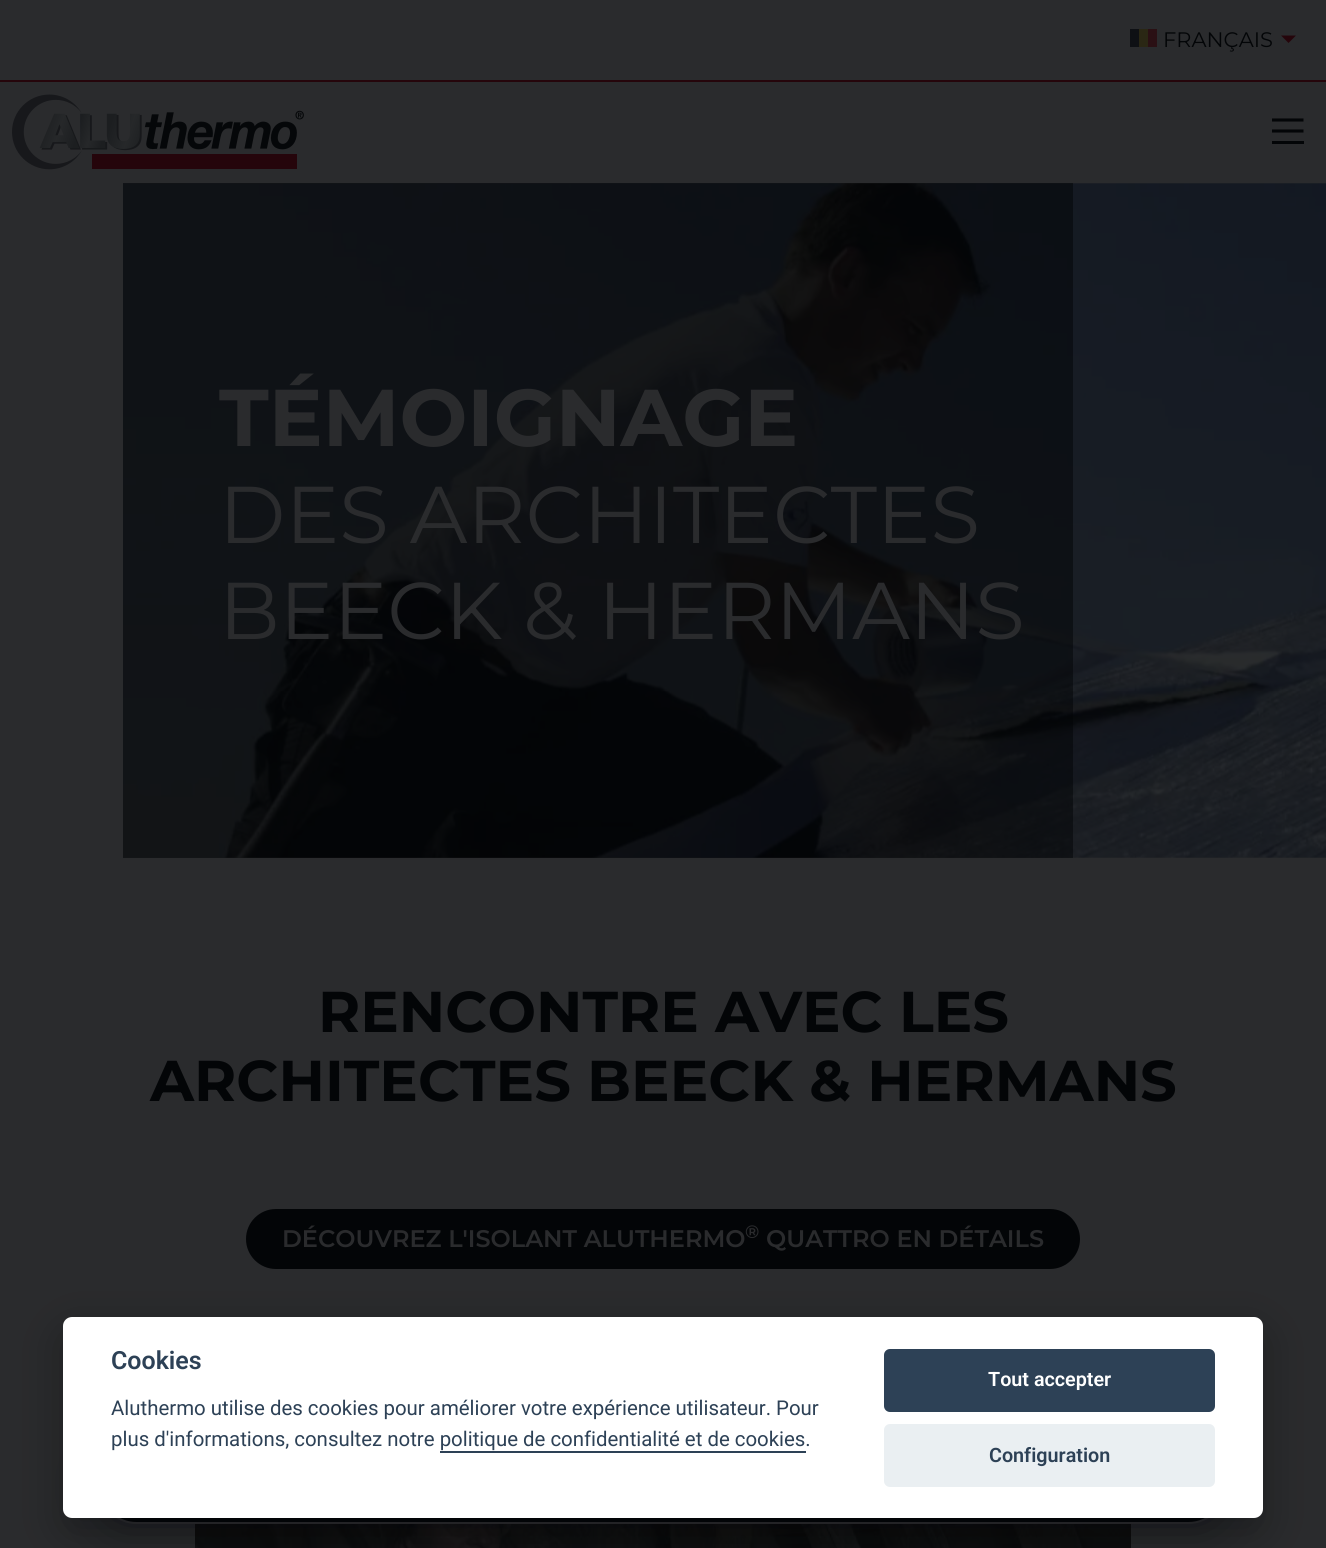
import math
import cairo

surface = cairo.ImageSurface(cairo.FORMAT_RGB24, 1326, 1548)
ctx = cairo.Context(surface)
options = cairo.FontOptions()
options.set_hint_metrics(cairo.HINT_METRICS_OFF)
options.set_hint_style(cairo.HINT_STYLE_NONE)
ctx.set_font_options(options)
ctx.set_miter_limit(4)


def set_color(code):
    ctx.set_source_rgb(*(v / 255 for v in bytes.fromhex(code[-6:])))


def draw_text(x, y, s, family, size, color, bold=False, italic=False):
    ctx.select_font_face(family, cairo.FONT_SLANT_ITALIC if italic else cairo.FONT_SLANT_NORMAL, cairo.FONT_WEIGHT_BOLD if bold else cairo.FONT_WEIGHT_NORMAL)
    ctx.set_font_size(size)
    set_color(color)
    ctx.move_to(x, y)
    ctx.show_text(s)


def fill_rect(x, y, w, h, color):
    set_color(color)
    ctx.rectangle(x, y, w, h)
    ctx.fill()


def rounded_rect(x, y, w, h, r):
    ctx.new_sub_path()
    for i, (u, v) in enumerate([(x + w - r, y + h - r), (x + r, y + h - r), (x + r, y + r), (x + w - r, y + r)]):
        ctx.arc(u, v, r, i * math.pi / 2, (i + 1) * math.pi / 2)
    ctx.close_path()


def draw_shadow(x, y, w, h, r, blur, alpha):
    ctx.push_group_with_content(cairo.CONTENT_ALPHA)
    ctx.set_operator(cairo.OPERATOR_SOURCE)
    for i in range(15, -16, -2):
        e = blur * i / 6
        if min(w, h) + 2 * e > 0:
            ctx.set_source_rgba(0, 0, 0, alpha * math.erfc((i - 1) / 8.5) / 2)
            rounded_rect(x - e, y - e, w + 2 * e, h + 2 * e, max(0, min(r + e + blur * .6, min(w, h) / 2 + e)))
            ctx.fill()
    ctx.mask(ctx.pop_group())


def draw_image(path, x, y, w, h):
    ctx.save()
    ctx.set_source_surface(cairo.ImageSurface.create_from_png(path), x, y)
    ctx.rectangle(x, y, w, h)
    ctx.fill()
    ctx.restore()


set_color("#2a2b2d")
ctx.paint()
fill_rect(1130, 29, 9, 18, "#0e1014")
fill_rect(1139, 29, 9, 18, "#2a2714")
fill_rect(1148, 29, 9, 18, "#2a1014")
draw_text(1163, 47, "FRANÇAIS", "Montserrat", 21, "#030507")
set_color("#25050b")
ctx.new_path()
ctx.move_to(1296, 35.5)
ctx.line_to(1288.5, 43)
ctx.line_to(1281, 35.5)
ctx.close_path()
ctx.fill()
fill_rect(0, 80, 1326, 2, "#25050b")
draw_image("assets/img1.png", 12, 94, 292, 76)
ctx.new_path()
ctx.move_to(1272, 120)
ctx.line_to(1303.5, 120)
ctx.move_to(1272, 131)
ctx.line_to(1303.5, 131)
set_color("#030507")
ctx.set_line_width(3.1)
ctx.stroke()
fill_rect(1272, 141, 32, 3, "#030507")
draw_image("assets/img2.png", 123, 183, 1203, 675)
ctx.set_source_rgba(0.012, 0.02, 0.027, 0.5)
ctx.rectangle(123, 183, 950, 675)
ctx.fill()
draw_text(219, 446, "TÉMOIGNAGE", "Montserrat", 80.4, "#2a2b2d", bold=True)
draw_text(219, 543, "DES ARCHITECTES", "Montserrat", 80.4, "#2a2b2d")
draw_text(219, 639, "BEECK & HERMANS", "Montserrat", 80.4, "#2a2b2d")
draw_text(318, 1032, "RENCONTRE AVEC LES", "Montserrat", 57.5, "#030507", bold=True)
draw_text(150, 1101, "ARCHITECTES BEECK & HERMANS", "Montserrat", 57.5, "#030507", bold=True)
rounded_rect(246, 1209, 834, 60, 30)
ctx.fill()
draw_text(282, 1247, "DÉCOUVREZ L'ISOLANT ALUTHERMO", "Montserrat SemiBold", 24, "#2a2b2d")
draw_text(745, 1238, "®", "Montserrat SemiBold", 18, "#2a2b2d")
draw_text(766, 1247, "QUATTRO EN DÉTAILS", "Montserrat SemiBold", 24, "#2a2b2d")
draw_image("assets/img3.png", 195, 1524, 936, 24)
set_color("#030507")
draw_shadow(99, 1449, 1127, 75, 37.5, 24, 0.5)
set_color("#030507")
rounded_rect(100, 1450, 1125, 73, 36.5)
ctx.fill_preserve()
set_color("#2a2b2d")
ctx.set_line_width(2)
ctx.stroke()
set_color("#020203")
draw_shadow(63, 1332, 1200, 201, 9, 22.5, 0.28)
set_color("#ffffff")
rounded_rect(63, 1317, 1200, 201, 9)
ctx.fill()
draw_text(111, 1369, "Cookies", "Roboto SemiBold", 25, "#2d4156")
draw_text(111, 1415, "Aluthermo utilise des cookies pour améliorer votre expérience utilisateur. Pour", "Roboto", 20.4, "#2d4156")
draw_text(111, 1446, "plus d'informations, consultez notre politique de confidentialité et de cookies.", "Roboto", 20.4, "#2d4156")
fill_rect(440, 1451, 366, 2, "#2d4156")
rounded_rect(884, 1349, 331, 63, 6)
ctx.fill()
draw_text(988, 1386, "Tout accepter", "Roboto SemiBold", 19.75, "#ffffff")
set_color("#eaeff2")
rounded_rect(884, 1424, 331, 63, 6)
ctx.fill()
draw_text(989, 1462, "Configuration", "Roboto SemiBold", 19.75, "#2d4156")
surface.write_to_png("output.png")
